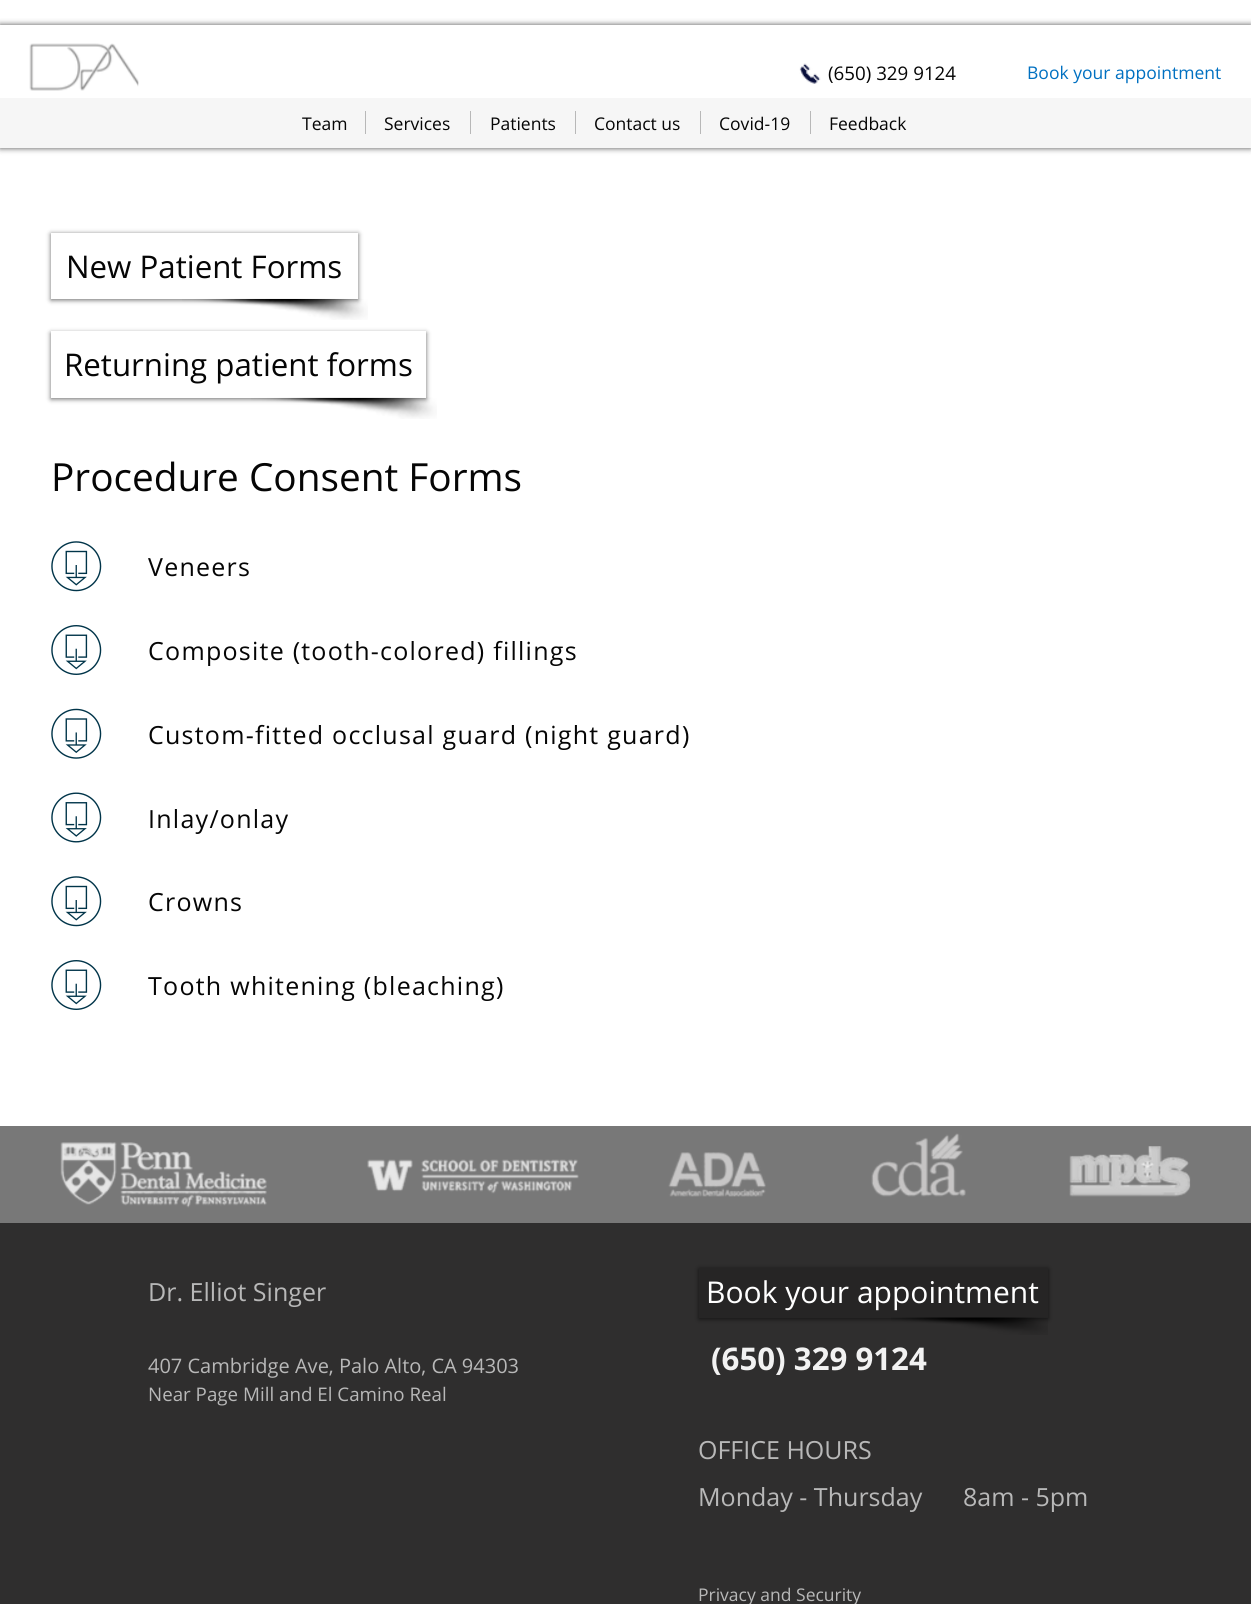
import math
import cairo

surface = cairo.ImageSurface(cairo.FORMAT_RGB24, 1251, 1604)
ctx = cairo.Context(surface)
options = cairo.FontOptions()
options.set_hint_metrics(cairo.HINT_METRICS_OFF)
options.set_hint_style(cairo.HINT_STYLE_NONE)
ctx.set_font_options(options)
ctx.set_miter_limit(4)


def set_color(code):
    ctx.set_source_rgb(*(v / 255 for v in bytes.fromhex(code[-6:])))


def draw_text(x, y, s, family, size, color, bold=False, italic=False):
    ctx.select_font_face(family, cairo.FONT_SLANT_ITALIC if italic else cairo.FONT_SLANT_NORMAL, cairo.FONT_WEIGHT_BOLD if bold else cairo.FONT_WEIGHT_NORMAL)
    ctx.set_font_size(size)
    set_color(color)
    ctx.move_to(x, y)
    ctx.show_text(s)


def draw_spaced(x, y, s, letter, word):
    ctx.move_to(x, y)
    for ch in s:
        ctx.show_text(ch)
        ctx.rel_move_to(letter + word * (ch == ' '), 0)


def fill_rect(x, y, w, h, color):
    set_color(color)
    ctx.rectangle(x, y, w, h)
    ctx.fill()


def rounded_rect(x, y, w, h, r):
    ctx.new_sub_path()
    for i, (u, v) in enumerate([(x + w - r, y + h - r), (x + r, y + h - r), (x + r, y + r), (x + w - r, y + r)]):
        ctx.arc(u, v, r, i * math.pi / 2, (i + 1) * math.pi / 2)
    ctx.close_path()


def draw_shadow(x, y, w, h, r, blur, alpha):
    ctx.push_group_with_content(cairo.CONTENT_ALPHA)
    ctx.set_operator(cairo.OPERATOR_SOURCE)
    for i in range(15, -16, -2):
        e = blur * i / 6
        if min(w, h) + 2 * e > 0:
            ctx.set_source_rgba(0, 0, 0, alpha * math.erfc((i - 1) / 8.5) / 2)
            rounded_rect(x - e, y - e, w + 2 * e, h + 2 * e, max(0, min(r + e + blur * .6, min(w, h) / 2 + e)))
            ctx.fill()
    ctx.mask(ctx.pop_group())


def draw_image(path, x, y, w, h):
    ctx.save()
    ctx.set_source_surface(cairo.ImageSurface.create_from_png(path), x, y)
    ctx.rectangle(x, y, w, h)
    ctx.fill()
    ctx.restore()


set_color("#ffffff")
ctx.paint()
ctx.save()
ctx.set_fill_rule(cairo.FILL_RULE_EVEN_ODD)
ctx.new_path()
ctx.move_to(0, 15)
ctx.line_to(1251, 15)
ctx.line_to(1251, 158)
ctx.line_to(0, 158)
ctx.close_path()
ctx.move_to(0, 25)
ctx.line_to(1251, 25)
ctx.line_to(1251, 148)
ctx.line_to(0, 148)
ctx.close_path()
ctx.clip()
set_color("#000000")
draw_shadow(0, 25, 1251, 123, 0, 3, 0.7)
ctx.restore()
ctx.set_source_rgba(1, 1, 1, 0.6)
ctx.rectangle(0, 147, 1251, 1)
ctx.fill()
draw_image("assets/img1.png", 29, 43, 110, 48)
draw_image("assets/img2.png", 799, 63, 22, 21)
draw_text(828, 80, "(650) 329 9124", "Open Sans", 18.75, "#050505")
draw_text(1027, 79, "Book your appointment", "Open Sans", 17.5, "#0070c1")
ctx.set_source_rgba(0.949, 0.949, 0.949, 0.73)
ctx.rectangle(0, 98, 1251, 50)
ctx.fill()
draw_text(302, 130, "Team", "Open Sans", 17.5, "#050505")
fill_rect(365, 111, 1, 23, "#b8b8b8")
draw_text(384, 130, "Services", "Open Sans", 17.5, "#050505")
fill_rect(470, 111, 1, 23, "#b8b8b8")
draw_text(490, 130, "Patients", "Open Sans", 17.5, "#050505")
fill_rect(575, 111, 1, 23, "#b8b8b8")
draw_text(594, 130, "Contact us", "Open Sans", 17.5, "#050505")
fill_rect(700, 111, 1, 23, "#b8b8b8")
draw_text(719, 130, "Covid-19", "Open Sans", 17.5, "#050505")
fill_rect(810, 111, 1, 23, "#b8b8b8")
draw_text(829, 130, "Feedback", "Open Sans", 17.5, "#050505")
draw_image("assets/img3.png", 182, 298, 186, 22)
ctx.save()
ctx.set_fill_rule(cairo.FILL_RULE_EVEN_ODD)
ctx.new_path()
ctx.move_to(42, 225)
ctx.line_to(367, 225)
ctx.line_to(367, 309)
ctx.line_to(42, 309)
ctx.close_path()
ctx.move_to(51, 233)
ctx.line_to(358, 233)
ctx.line_to(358, 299)
ctx.line_to(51, 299)
ctx.close_path()
ctx.clip()
set_color("#000000")
draw_shadow(51, 234, 307, 66, 0, 2.5, 0.6)
ctx.restore()
ctx.set_source_rgba(1, 1, 1, 0.84)
ctx.rectangle(51, 233, 307, 66)
ctx.fill()
draw_text(66, 278, "New Patient Forms", "Open Sans", 31.25, "#050505")
draw_image("assets/img4.png", 251, 397, 186, 22)
ctx.save()
ctx.set_fill_rule(cairo.FILL_RULE_EVEN_ODD)
ctx.new_path()
ctx.move_to(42, 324)
ctx.line_to(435, 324)
ctx.line_to(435, 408)
ctx.line_to(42, 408)
ctx.close_path()
ctx.move_to(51, 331)
ctx.line_to(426, 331)
ctx.line_to(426, 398)
ctx.line_to(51, 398)
ctx.close_path()
ctx.clip()
set_color("#000000")
draw_shadow(51, 333, 375, 66, 0, 2.5, 0.6)
ctx.restore()
ctx.set_source_rgba(1, 1, 1, 0.84)
ctx.rectangle(51, 331, 375, 67)
ctx.fill()
draw_text(64, 376, "Returning patient forms", "Open Sans", 31.25, "#050505")
draw_text(51, 491, "Procedure Consent Forms", "Open Sans", 38.75, "#050505")
draw_image("assets/img5.png", 51, 541, 51, 51)
ctx.set_font_size(25)
draw_spaced(148, 576, "Veneers", 1.25, 0)
draw_image("assets/img6.png", 51, 625, 51, 50)
draw_spaced(148, 660, "Composite (tooth-colored) fillings", 1.25, 0)
draw_image("assets/img7.png", 51, 708, 51, 51)
draw_spaced(148, 744, "Custom-fitted occlusal guard (night guard)", 1.25, 0)
draw_image("assets/img8.png", 51, 792, 51, 51)
draw_spaced(148, 828, "Inlay/onlay", 1.25, 0)
draw_image("assets/img5.png", 51, 876, 51, 51)
draw_spaced(148, 911, "Crowns", 1.25, 0)
draw_image("assets/img6.png", 51, 960, 51, 50)
draw_spaced(148, 995, "Tooth whitening (bleaching)", 1.25, 0)
fill_rect(0, 1223, 1251, 381, "#2f2e2e")
fill_rect(0, 1126, 1251, 97, "#787878")
draw_image("assets/img9.png", 60, 1142, 207, 66)
draw_image("assets/img10.png", 367, 1159, 212, 35)
draw_image("assets/img11.png", 668, 1152, 98, 45)
draw_image("assets/img12.png", 871, 1133, 95, 64)
draw_image("assets/img13.png", 1069, 1146, 122, 51)
draw_text(148, 1301, "Dr. Elliot Singer", "Open Sans", 25, "#b8b8b8")
draw_image("assets/img14.png", 891, 1317, 157, 18)
ctx.save()
ctx.set_fill_rule(cairo.FILL_RULE_EVEN_ODD)
ctx.new_path()
ctx.move_to(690, 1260)
ctx.line_to(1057, 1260)
ctx.line_to(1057, 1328)
ctx.line_to(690, 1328)
ctx.close_path()
ctx.move_to(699, 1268)
ctx.line_to(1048, 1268)
ctx.line_to(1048, 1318)
ctx.line_to(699, 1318)
ctx.close_path()
ctx.clip()
set_color("#000000")
draw_shadow(699, 1269, 349, 50, 0, 2.5, 0.6)
ctx.restore()
ctx.set_source_rgba(0.02, 0.02, 0.02, 0.22)
ctx.rectangle(699, 1268, 349, 50)
ctx.fill()
draw_text(706, 1303, "Book your appointment", "Open Sans", 30, "#ffffff")
draw_text(148, 1373, "407 Cambridge Ave, Palo Alto, CA 94303", "Open Sans", 20, "#b8b8b8")
draw_text(711, 1370, "(650) 329 9124", "Open Sans", 31.25, "#f2f2f2", bold=True)
draw_text(148, 1401, "Near Page Mill and El Camino Real", "Open Sans", 18.75, "#b8b8b8")
draw_text(698, 1459, "OFFICE HOURS", "Open Sans", 25, "#b8b8b8")
draw_text(698, 1506, "Monday - Thursday", "Open Sans", 25, "#b8b8b8")
draw_text(963, 1506, "8am - 5pm", "Open Sans", 25, "#b8b8b8")
draw_text(698, 1601, "Privacy and Security", "Open Sans", 17.5, "#b8b8b8")
surface.write_to_png("output.png")
